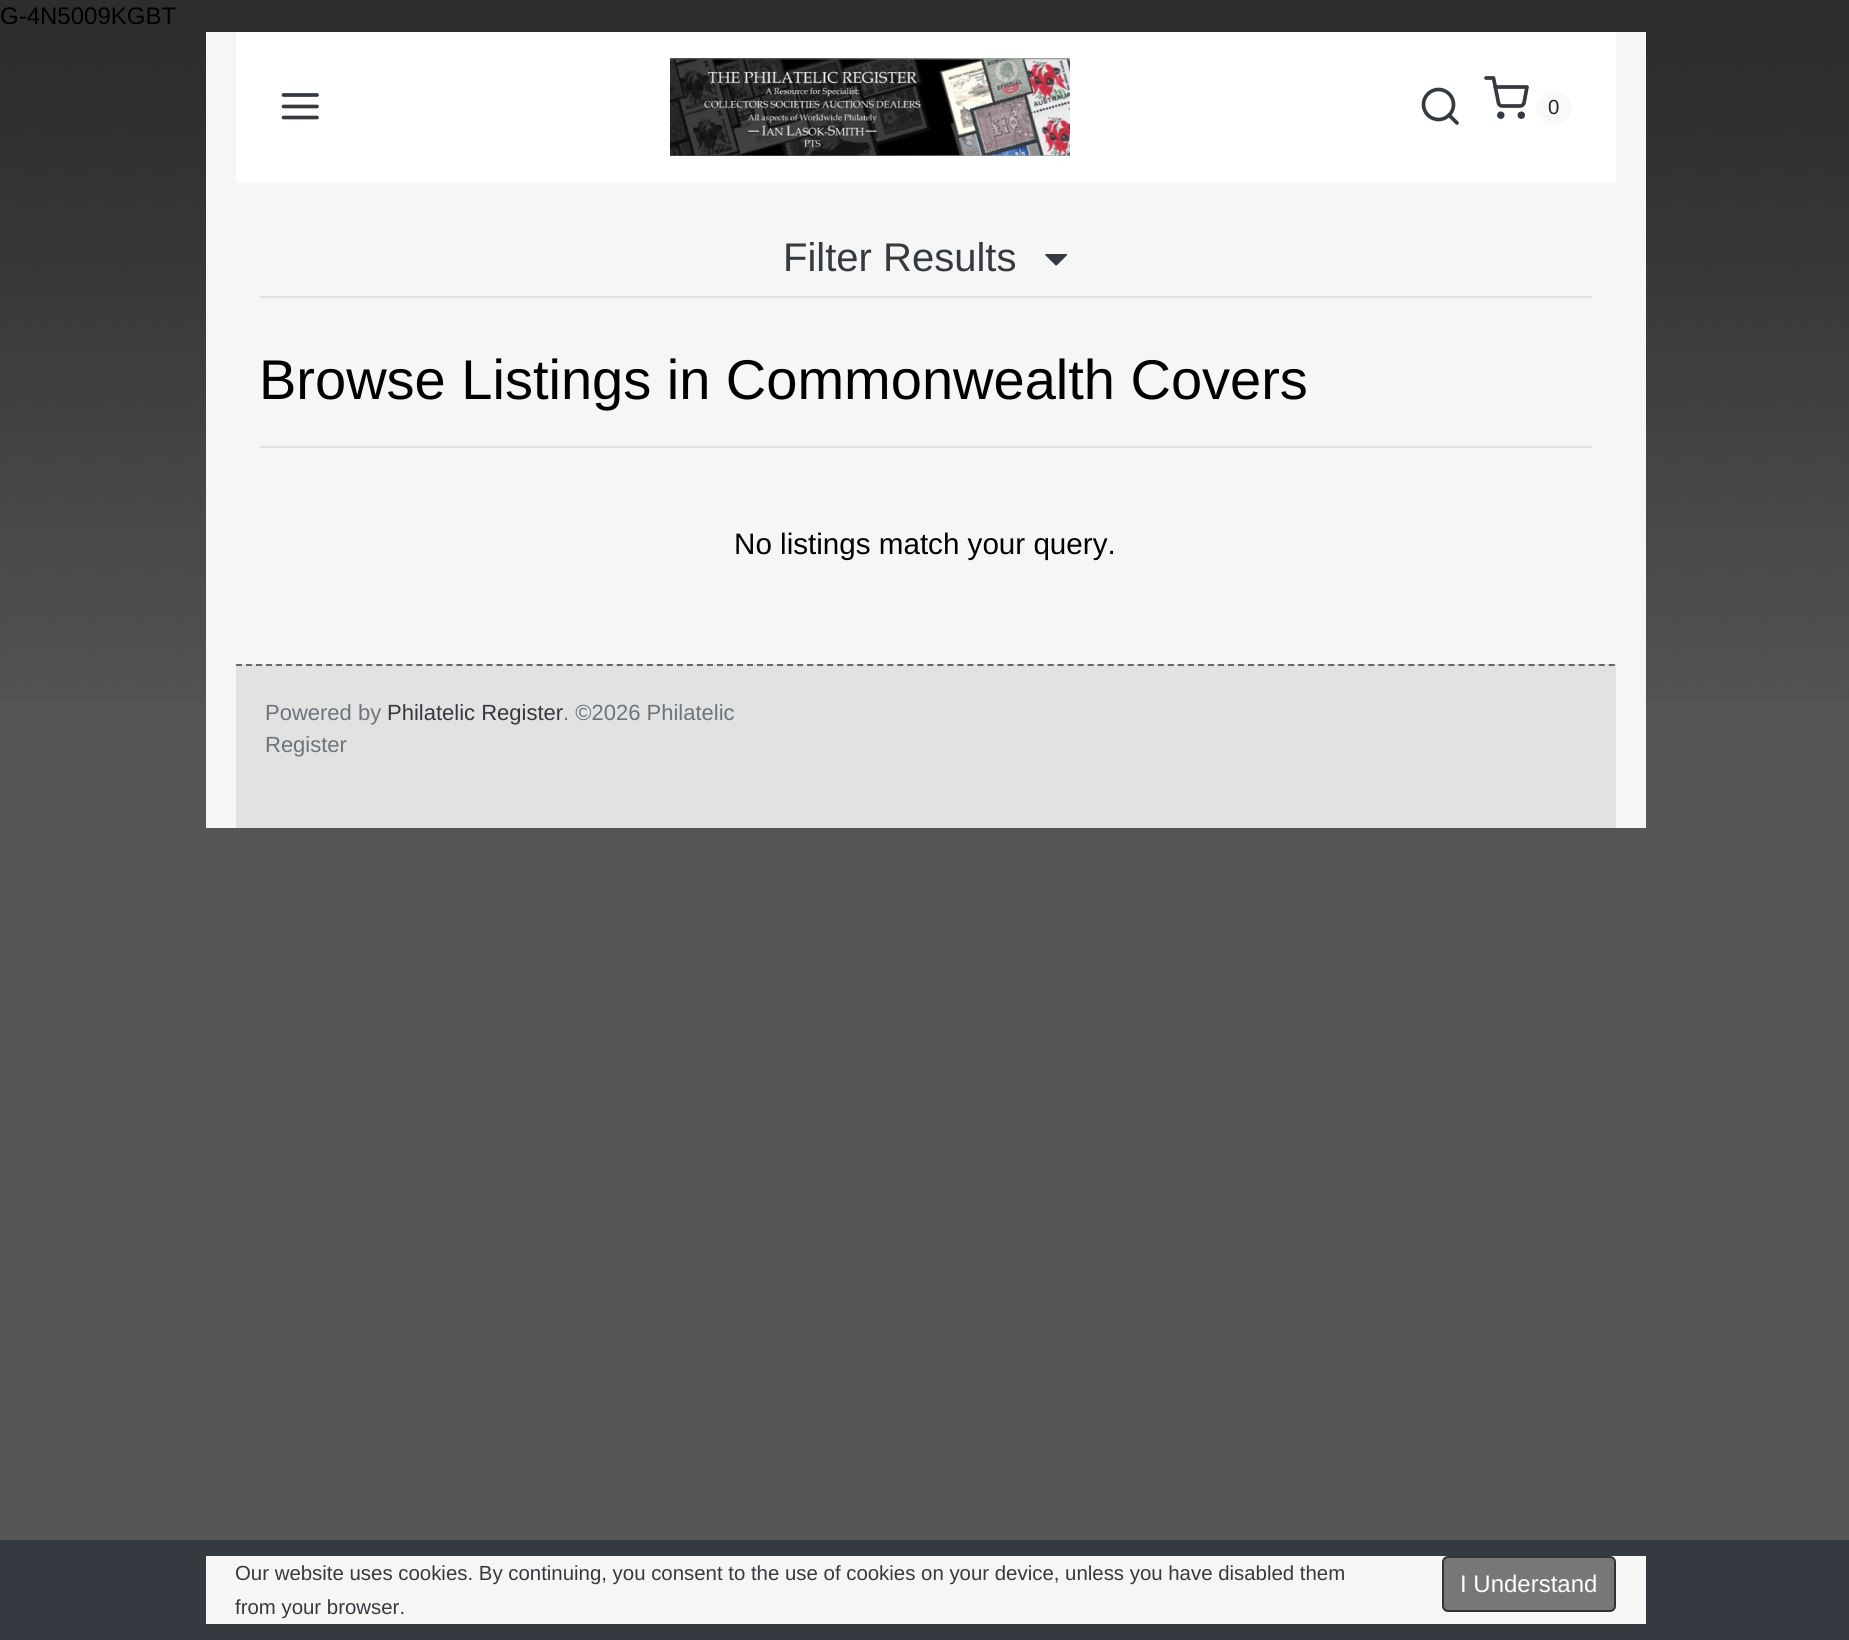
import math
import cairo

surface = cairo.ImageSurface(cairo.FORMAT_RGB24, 1849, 1640)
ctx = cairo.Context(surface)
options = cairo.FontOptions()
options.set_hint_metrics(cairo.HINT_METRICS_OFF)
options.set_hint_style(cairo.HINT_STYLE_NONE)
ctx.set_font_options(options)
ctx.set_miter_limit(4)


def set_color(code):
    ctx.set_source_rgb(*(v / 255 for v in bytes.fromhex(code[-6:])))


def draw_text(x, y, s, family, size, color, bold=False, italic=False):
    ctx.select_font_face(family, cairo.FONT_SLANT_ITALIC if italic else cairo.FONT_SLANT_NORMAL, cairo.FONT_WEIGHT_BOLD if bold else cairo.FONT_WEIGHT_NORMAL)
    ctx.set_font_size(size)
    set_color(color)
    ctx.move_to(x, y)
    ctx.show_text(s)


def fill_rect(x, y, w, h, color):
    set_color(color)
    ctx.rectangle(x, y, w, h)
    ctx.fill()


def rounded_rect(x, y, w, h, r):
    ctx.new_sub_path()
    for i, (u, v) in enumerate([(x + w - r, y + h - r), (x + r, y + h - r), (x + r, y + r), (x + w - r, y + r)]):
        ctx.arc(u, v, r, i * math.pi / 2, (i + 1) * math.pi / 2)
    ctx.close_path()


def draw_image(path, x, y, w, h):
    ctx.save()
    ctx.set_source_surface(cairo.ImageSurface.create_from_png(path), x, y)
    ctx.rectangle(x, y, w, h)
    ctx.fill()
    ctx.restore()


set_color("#565655")
ctx.paint()
draw_image("assets/img1.png", 0, 0, 1849, 702)
draw_text(0, 24, "G-4N5009KGBT", "Liberation Sans", 24, "#000000")
fill_rect(206, 32, 1440, 796, "#f6f6f6")
fill_rect(236, 32, 1380, 150, "#ffffff")
fill_rect(236, 182, 1380, 2, "#f8f9fa")
ctx.new_path()
ctx.move_to(283.5, 106.5)
ctx.line_to(317, 106.5)
ctx.move_to(283.5, 95)
ctx.line_to(317, 95)
ctx.move_to(283.5, 117.5)
ctx.line_to(317, 117.5)
set_color("#343a40")
ctx.set_line_width(3.7)
ctx.set_line_cap(cairo.LINE_CAP_ROUND)
ctx.set_line_join(cairo.LINE_JOIN_ROUND)
ctx.stroke()
draw_image("assets/img2.png", 670, 58, 400, 98)
ctx.arc(1438.5, 104.5, 15, 0, 2 * math.pi)
ctx.set_line_cap(cairo.LINE_CAP_BUTT)
ctx.set_line_join(cairo.LINE_JOIN_MITER)
ctx.stroke()
ctx.new_path()
ctx.move_to(1457, 123)
ctx.line_to(1449, 115)
ctx.set_line_cap(cairo.LINE_CAP_ROUND)
ctx.set_line_join(cairo.LINE_JOIN_ROUND)
ctx.stroke()
ctx.new_path()
ctx.move_to(1486, 78)
ctx.line_to(1493.5, 78)
ctx.line_to(1498.5, 103)
ctx.curve_to(1498.5, 104.5, 1500.5, 106, 1502, 106)
ctx.line_to(1520, 106)
ctx.curve_to(1522, 106, 1523.5, 104.5, 1524, 103)
ctx.line_to(1527, 87)
ctx.line_to(1495, 87)
ctx.stroke()
set_color("#f8f9fa")
rounded_rect(1536, 92, 36, 32, 16)
ctx.fill()
draw_text(1548, 114, "0", "Liberation Sans", 20.4, "#212529")
ctx.new_path()
ctx.arc(1500.8, 115.2, 1.9, 0, 2 * math.pi)
set_color("#343a40")
ctx.set_line_cap(cairo.LINE_CAP_BUTT)
ctx.set_line_join(cairo.LINE_JOIN_MITER)
ctx.stroke()
ctx.arc(1521.3, 115.2, 1.9, 0, 2 * math.pi)
ctx.stroke()
fill_rect(260, 296, 1332, 2, "#dee2e6")
draw_text(783, 271, "Filter Results", "Liberation Sans", 40, "#343a40")
draw_image("assets/img3.png", 1045, 254, 23, 12)
fill_rect(260, 446, 1332, 2, "#dee2e6")
draw_text(259, 399, "Browse Listings in Commonwealth Covers", "Liberation Sans", 56, "#000000")
draw_text(734, 554, "No listings match your query.", "Liberation Sans", 29.6, "#000000")
fill_rect(236, 664, 1380, 164, "#e2e2e2")
ctx.new_path()
ctx.move_to(236, 665)
ctx.line_to(1616, 665)
set_color("#666666")
ctx.set_line_width(2)
ctx.set_dash([6, 4.02])
ctx.stroke()
draw_text(265, 720, "Powered by", "Liberation Sans", 22, "#6c757d")
draw_text(387, 720, "Philatelic Register", "Liberation Sans", 22, "#343a40")
draw_text(563, 720, ". ©2026 Philatelic", "Liberation Sans", 22, "#6c757d")
draw_text(265, 752, "Register", "Liberation Sans", 22, "#6c757d")
fill_rect(0, 1540, 1849, 100, "#343a40")
fill_rect(206, 1556, 1440, 68, "#f6f6f6")
draw_text(235, 1580, "Our website uses cookies. By continuing, you consent to the use of cookies on your device, unless you have disabled them", "Liberation Sans", 20.4, "#343a40")
draw_text(235, 1614, "from your browser.", "Liberation Sans", 20.4, "#343a40")
set_color("#777777")
rounded_rect(1443, 1557, 172, 54, 5)
ctx.fill_preserve()
set_color("#333333")
ctx.set_dash([])
ctx.stroke()
draw_text(1460, 1592, "I Understand", "Liberation Sans", 24, "#ffffff")
surface.write_to_png("output.png")
